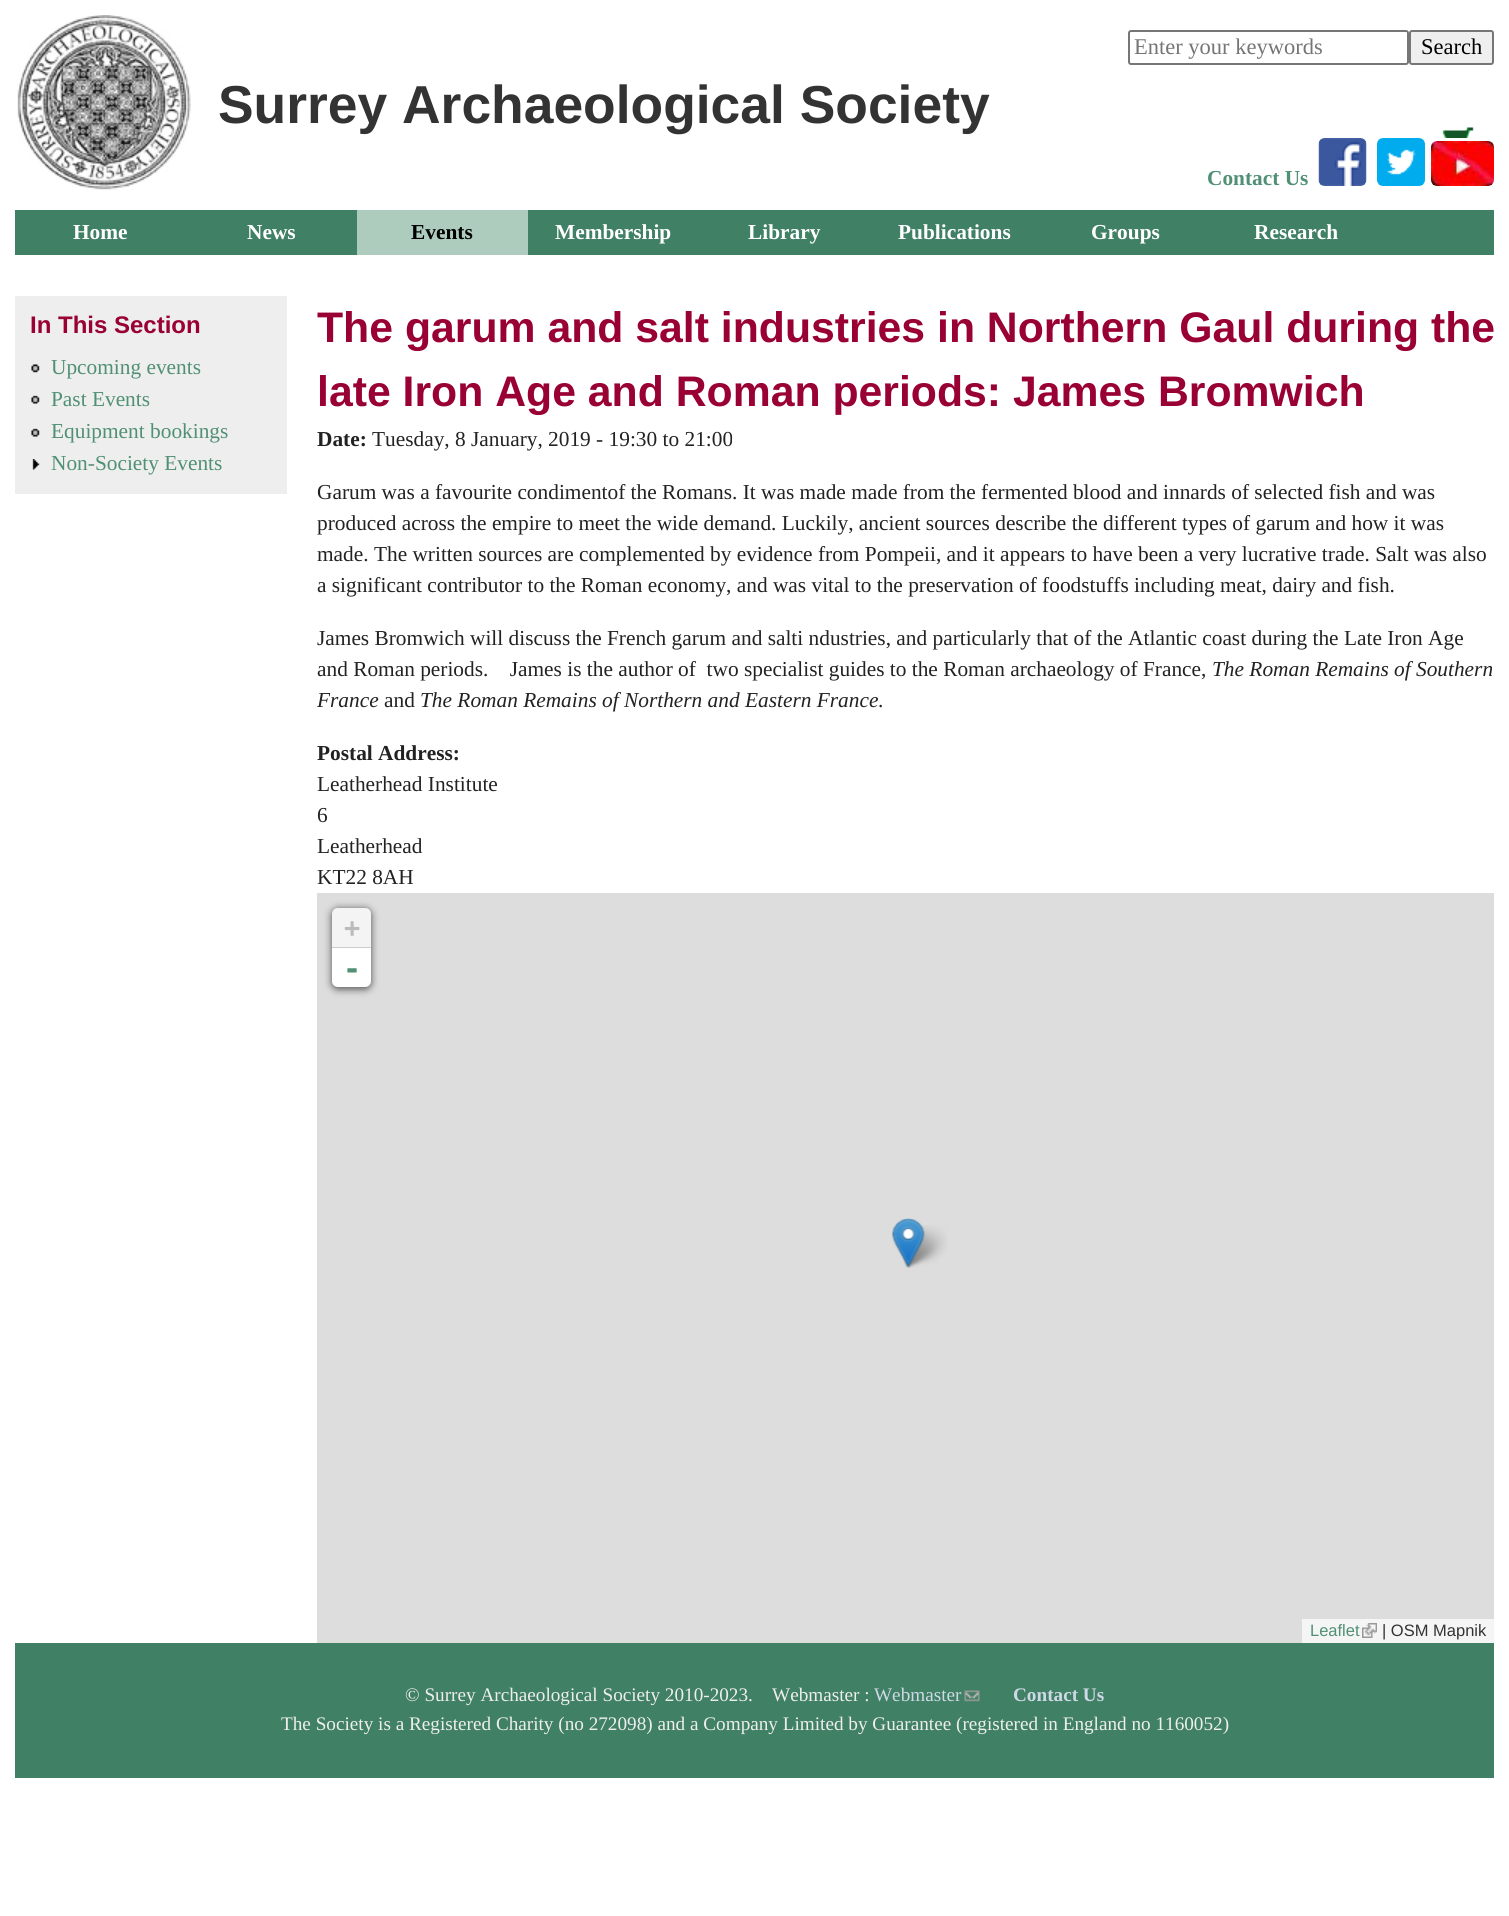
import math
import cairo

surface = cairo.ImageSurface(cairo.FORMAT_RGB24, 1509, 1916)
ctx = cairo.Context(surface)
options = cairo.FontOptions()
options.set_hint_metrics(cairo.HINT_METRICS_OFF)
options.set_hint_style(cairo.HINT_STYLE_NONE)
ctx.set_font_options(options)
ctx.set_miter_limit(4)


def set_color(code):
    ctx.set_source_rgb(*(v / 255 for v in bytes.fromhex(code[-6:])))


def draw_text(x, y, s, family, size, color, bold=False, italic=False):
    ctx.select_font_face(family, cairo.FONT_SLANT_ITALIC if italic else cairo.FONT_SLANT_NORMAL, cairo.FONT_WEIGHT_BOLD if bold else cairo.FONT_WEIGHT_NORMAL)
    ctx.set_font_size(size)
    set_color(color)
    ctx.move_to(x, y)
    ctx.show_text(s)


def fill_rect(x, y, w, h, color):
    set_color(color)
    ctx.rectangle(x, y, w, h)
    ctx.fill()


def rounded_rect(x, y, w, h, r):
    ctx.new_sub_path()
    for i, (u, v) in enumerate([(x + w - r, y + h - r), (x + r, y + h - r), (x + r, y + r), (x + w - r, y + r)]):
        ctx.arc(u, v, r, i * math.pi / 2, (i + 1) * math.pi / 2)
    ctx.close_path()


def draw_shadow(x, y, w, h, r, blur, alpha):
    ctx.push_group_with_content(cairo.CONTENT_ALPHA)
    ctx.set_operator(cairo.OPERATOR_SOURCE)
    for i in range(15, -16, -2):
        e = blur * i / 6
        if min(w, h) + 2 * e > 0:
            ctx.set_source_rgba(0, 0, 0, alpha * math.erfc((i - 1) / 8.5) / 2)
            rounded_rect(x - e, y - e, w + 2 * e, h + 2 * e, max(0, min(r + e + blur * .6, min(w, h) / 2 + e)))
            ctx.fill()
    ctx.mask(ctx.pop_group())


def draw_image(path, x, y, w, h):
    ctx.save()
    ctx.set_source_surface(cairo.ImageSurface.create_from_png(path), x, y)
    ctx.rectangle(x, y, w, h)
    ctx.fill()
    ctx.restore()


set_color("#ffffff")
ctx.paint()
draw_image("assets/img1.png", 17, 15, 174, 175)
draw_text(218, 123, "Surrey Archaeological Society", "Liberation Sans", 53.4, "#333333", bold=True)
rounded_rect(1129, 31, 279, 33, 2)
set_color("#767676")
ctx.stroke()
draw_text(1134, 54, "Enter your keywords", "Liberation Serif", 22.5, "#757575")
set_color("#efefef")
rounded_rect(1410, 31, 83, 33, 2)
ctx.fill_preserve()
set_color("#767676")
ctx.stroke()
draw_text(1421, 54, "Search", "Liberation Serif", 22.5, "#000000")
draw_image("assets/img2.png", 1442, 127, 32, 11)
draw_text(1207, 185, "Contact Us", "Liberation Serif", 21.35, "#509074", bold=True)
draw_image("assets/img3.png", 1318, 138, 49, 48)
draw_image("assets/img4.png", 1377, 138, 48, 48)
draw_image("assets/img5.png", 1431, 141, 63, 45)
fill_rect(15, 210, 1479, 45, "#408064")
draw_text(73, 239, "Home", "Liberation Serif", 21.35, "#ffffff", bold=True)
draw_text(247, 239, "News", "Liberation Serif", 21.35, "#ffffff", bold=True)
fill_rect(357, 210, 171, 45, "#adccbd")
draw_text(411, 239, "Events", "Liberation Serif", 21.35, "#000000", bold=True)
draw_text(555, 239, "Membership", "Liberation Serif", 21.35, "#ffffff", bold=True)
draw_text(748, 239, "Library", "Liberation Serif", 21.35, "#ffffff", bold=True)
draw_text(898, 239, "Publications", "Liberation Serif", 21.35, "#ffffff", bold=True)
draw_text(1091, 239, "Groups", "Liberation Serif", 21.35, "#ffffff", bold=True)
draw_text(1254, 239, "Research", "Liberation Serif", 21.35, "#ffffff", bold=True)
fill_rect(15, 296, 272, 198, "#eeeeee")
draw_text(30, 333, "In This Section", "Liberation Sans", 24, "#990033", bold=True)
draw_image("assets/img6.png", 31, 364, 9, 9)
draw_text(51, 374, "Upcoming events", "Liberation Serif", 21.35, "#509074")
draw_image("assets/img7.png", 31, 395, 9, 9)
draw_text(51, 406, "Past Events", "Liberation Serif", 21.35, "#509074")
draw_image("assets/img7.png", 31, 428, 9, 9)
draw_text(51, 438, "Equipment bookings", "Liberation Serif", 21.35, "#509074")
draw_image("assets/img8.png", 32, 459, 8, 11)
draw_text(51, 470, "Non-Society Events", "Liberation Serif", 21.35, "#509074")
draw_text(317, 342, "The garum and salt industries in Northern Gaul during the", "Liberation Sans", 42.75, "#990033", bold=True)
draw_text(317, 406, "late Iron Age and Roman periods: James Bromwich", "Liberation Sans", 42.75, "#990033", bold=True)
draw_text(317, 446, "Date:", "Liberation Serif", 21.35, "#222222", bold=True)
draw_text(372, 446, "Tuesday, 8 January, 2019 - 19:30 to 21:00", "Liberation Serif", 21.35, "#222222")
draw_text(317, 499, "Garum was a favourite condimentof the Romans. It was made made from the fermented blood and innards of selected fish and was", "Liberation Serif", 21.35, "#222222")
draw_text(317, 530, "produced across the empire to meet the wide demand. Luckily, ancient sources describe the different types of garum and how it was", "Liberation Serif", 21.35, "#222222")
draw_text(317, 561, "made. The written sources are complemented by evidence from Pompeii, and it appears to have been a very lucrative trade. Salt was also", "Liberation Serif", 21.35, "#222222")
draw_text(317, 592, "a significant contributor to the Roman economy, and was vital to the preservation of foodstuffs including meat, dairy and fish.", "Liberation Serif", 21.35, "#222222")
draw_text(317, 645, "James Bromwich will discuss the French garum and salti ndustries, and particularly that of the Atlantic coast during the Late Iron Age", "Liberation Serif", 21.35, "#222222")
draw_text(317, 676, "and Roman periods.    James is the author of  two specialist guides to the Roman archaeology of France,", "Liberation Serif", 21.35, "#222222")
draw_text(1212, 676, "The Roman Remains of Southern", "Liberation Serif", 21.35, "#222222", italic=True)
draw_text(317, 707, "France", "Liberation Serif", 21.35, "#222222", italic=True)
draw_text(384, 707, "and", "Liberation Serif", 21.35, "#222222")
draw_text(420, 707, "The Roman Remains of Northern and Eastern France", "Liberation Serif", 21.35, "#222222", italic=True)
draw_text(878, 707, ".", "Liberation Serif", 21.35, "#222222")
draw_text(317, 760, "Postal Address:", "Liberation Serif", 21.35, "#222222", bold=True)
draw_text(317, 791, "Leatherhead Institute", "Liberation Serif", 21.35, "#222222")
draw_text(317, 822, "6", "Liberation Serif", 21.35, "#222222")
draw_text(317, 853, "Leatherhead", "Liberation Serif", 21.35, "#222222")
draw_text(317, 884, "KT22 8AH", "Liberation Serif", 21.35, "#222222")
fill_rect(317, 893, 1177, 750, "#dddddd")
set_color("#000000")
draw_shadow(332, 909, 39, 80, 6, 4, 0.65)
set_color("#f4f4f4")
ctx.new_path()
ctx.move_to(338, 908)
ctx.line_to(365, 908)
ctx.curve_to(368.5, 908, 371, 910.5, 371, 914)
ctx.line_to(371, 948)
ctx.line_to(332, 948)
ctx.line_to(332, 914)
ctx.curve_to(332, 910.5, 334.5, 908, 338, 908)
ctx.close_path()
ctx.fill()
fill_rect(332, 947, 39, 1, "#cccccc")
draw_text(344, 937, "+", "DejaVu Sans Mono", 27, "#bbbbbb", bold=True)
set_color("#ffffff")
ctx.new_path()
ctx.move_to(332, 948)
ctx.line_to(371, 948)
ctx.line_to(371, 981)
ctx.curve_to(371, 984.5, 368.5, 987, 365, 987)
ctx.line_to(338, 987)
ctx.curve_to(334.5, 987, 332, 984.5, 332, 981)
ctx.close_path()
ctx.fill()
draw_text(343, 979, "-", "DejaVu Sans Mono", 30, "#509074", bold=True)
fill_rect(1302, 1619, 192, 24, "#f5f5f5")
draw_text(1310, 1636, "Leaflet", "Liberation Sans", 16.5, "#509074")
draw_image("assets/img9.png", 1362, 1623, 15, 15)
draw_text(1382, 1636, "| OSM Mapnik", "Liberation Sans", 16.5, "#333333")
draw_image("assets/img11.png", 901, 1225, 46, 43)
draw_image("assets/img10.png", 892, 1218, 33, 50)
fill_rect(15, 1643, 1479, 135, "#408064")
draw_text(405, 1701, "© Surrey Archaeological Society 2010-2023.    Webmaster :", "Liberation Serif", 19.2, "#eeeeee")
draw_text(874, 1701, "Webmaster", "Liberation Serif", 19.2, "#cfd8e6")
draw_image("assets/img12.png", 964, 1690, 16, 12)
draw_text(1013, 1701, "Contact Us", "Liberation Serif", 19.2, "#cfd8e6", bold=True)
draw_text(281, 1730, "The Society is a Registered Charity (no 272098) and a Company Limited by Guarantee (registered in England no 1160052)", "Liberation Serif", 19.2, "#eeeeee")
surface.write_to_png("output.png")
